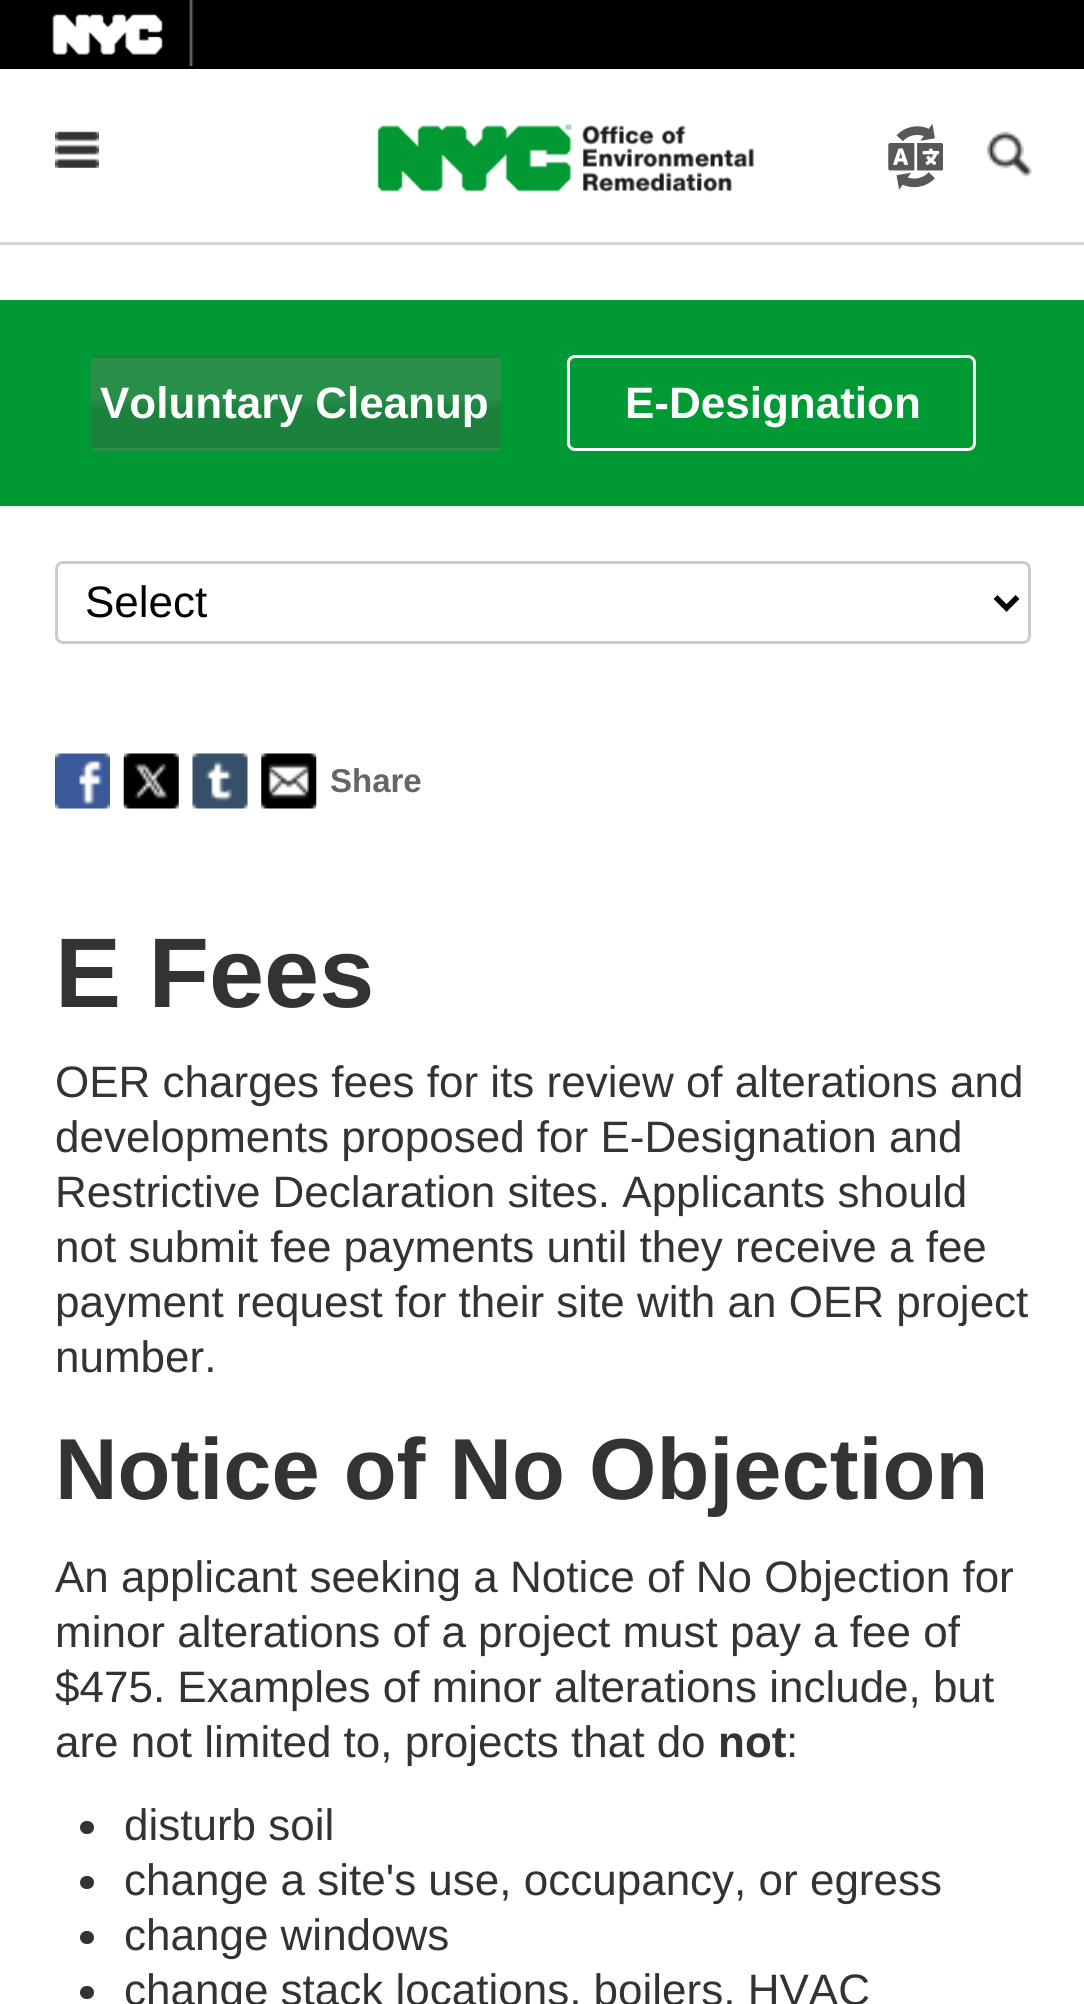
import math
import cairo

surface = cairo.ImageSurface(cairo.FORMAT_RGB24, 1084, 2004)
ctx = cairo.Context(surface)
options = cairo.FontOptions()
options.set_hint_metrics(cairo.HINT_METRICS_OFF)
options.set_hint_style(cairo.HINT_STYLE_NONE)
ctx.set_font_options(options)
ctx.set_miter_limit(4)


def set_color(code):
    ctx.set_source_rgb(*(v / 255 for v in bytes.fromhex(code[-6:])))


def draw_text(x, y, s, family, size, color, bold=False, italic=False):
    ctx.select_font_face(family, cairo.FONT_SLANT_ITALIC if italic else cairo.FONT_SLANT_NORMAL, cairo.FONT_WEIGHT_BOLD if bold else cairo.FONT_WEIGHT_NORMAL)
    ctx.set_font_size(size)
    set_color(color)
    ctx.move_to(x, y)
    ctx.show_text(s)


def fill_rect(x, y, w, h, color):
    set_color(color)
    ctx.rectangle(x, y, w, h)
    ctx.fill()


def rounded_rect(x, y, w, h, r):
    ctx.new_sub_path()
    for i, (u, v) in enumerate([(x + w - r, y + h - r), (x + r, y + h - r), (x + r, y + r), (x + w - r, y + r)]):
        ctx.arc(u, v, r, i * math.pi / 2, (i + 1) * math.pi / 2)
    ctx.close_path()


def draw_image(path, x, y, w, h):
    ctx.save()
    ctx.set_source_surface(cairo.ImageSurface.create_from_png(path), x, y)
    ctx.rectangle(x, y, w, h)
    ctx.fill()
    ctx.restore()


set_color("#ffffff")
ctx.paint()
fill_rect(0, 0, 1084, 69, "#000000")
draw_image("assets/img1.png", 52, 13, 111, 42)
draw_image("assets/img2.png", 189, 0, 5, 66)
fill_rect(0, 242, 1084, 3, "#d5d5d5")
draw_image("assets/img3.png", 55, 131, 44, 37)
draw_image("assets/img4.png", 376, 123, 378, 70)
draw_image("assets/img5.png", 888, 124, 55, 66)
draw_image("assets/img6.png", 987, 131, 45, 46)
fill_rect(0, 300, 1084, 206, "#009933")
set_color("#1c883f")
rounded_rect(91, 355, 410, 96, 8)
ctx.fill()
gradient = cairo.LinearGradient(94, 358, 94, 267)
gradient.add_color_stop_rgba(0, 0, 0, 0, 0.05)
gradient.add_color_stop_rgba(0.43, 0, 0, 0, 0.05)
gradient.add_color_stop_rgba(0.56, 1, 1, 1, 0.05)
gradient.add_color_stop_rgba(1, 1, 1, 1, 0.05)
ctx.set_source(gradient)
ctx.rectangle(91, 355, 410, 3)
ctx.fill()
gradient = cairo.LinearGradient(94, 448, 94, 358)
gradient.add_color_stop_rgba(0, 0, 0, 0, 0.05)
gradient.add_color_stop_rgba(0.43, 0, 0, 0, 0.05)
gradient.add_color_stop_rgba(0.56, 1, 1, 1, 0.05)
gradient.add_color_stop_rgba(1, 1, 1, 1, 0.05)
ctx.set_source(gradient)
ctx.rectangle(91, 358, 410, 90)
ctx.fill()
gradient = cairo.LinearGradient(94, 539, 94, 448)
gradient.add_color_stop_rgba(0, 0, 0, 0, 0.05)
gradient.add_color_stop_rgba(0.43, 0, 0, 0, 0.05)
gradient.add_color_stop_rgba(0.56, 1, 1, 1, 0.05)
gradient.add_color_stop_rgba(1, 1, 1, 1, 0.05)
ctx.set_source(gradient)
ctx.rectangle(91, 448, 410, 3)
ctx.fill()
draw_text(100, 418, "Voluntary Cleanup", "Liberation Sans", 44, "#ffffff", bold=True)
rounded_rect(568.5, 356.5, 406, 93, 6.5)
ctx.set_line_width(3)
ctx.stroke()
draw_text(625, 418, "E-Designation", "Liberation Sans", 44, "#ffffff", bold=True)
rounded_rect(56.5, 562.5, 973, 80, 6.5)
set_color("#cccccc")
ctx.stroke()
ctx.new_path()
ctx.move_to(995.5, 597)
ctx.line_to(1006.5, 608)
ctx.line_to(1017.5, 597)
set_color("#000000")
ctx.set_line_width(5.5)
ctx.stroke()
draw_text(85, 617, "Select", "Liberation Sans", 44, "#000000")
draw_image("assets/img7.png", 55, 753, 55, 56)
draw_image("assets/img8.png", 123, 753, 56, 56)
draw_image("assets/img9.png", 192, 753, 56, 56)
draw_image("assets/img10.png", 261, 753, 56, 56)
draw_text(330, 792, "Share", "Liberation Sans", 33, "#666666", bold=True)
draw_text(55, 1007, "E Fees", "Liberation Sans", 99, "#333333", bold=True)
draw_text(55, 1097, "OER charges fees for its review of alterations and", "Liberation Sans", 44, "#333333")
draw_text(55, 1152, "developments proposed for E-Designation and", "Liberation Sans", 44, "#333333")
draw_text(55, 1207, "Restrictive Declaration sites. Applicants should", "Liberation Sans", 44, "#333333")
draw_text(55, 1262, "not submit fee payments until they receive a fee", "Liberation Sans", 44, "#333333")
draw_text(55, 1317, "payment request for their site with an OER project", "Liberation Sans", 44, "#333333")
draw_text(55, 1372, "number.", "Liberation Sans", 44, "#333333")
draw_text(55, 1499, "Notice of No Objection", "Liberation Sans", 86.6, "#333333", bold=True)
draw_text(55, 1592, "An applicant seeking a Notice of No Objection for", "Liberation Sans", 44, "#333333")
draw_text(55, 1647, "minor alterations of a project must pay a fee of", "Liberation Sans", 44, "#333333")
draw_text(55, 1702, "$475. Examples of minor alterations include, but", "Liberation Sans", 44, "#333333")
draw_text(55, 1757, "are not limited to, projects that do", "Liberation Sans", 44, "#333333")
draw_text(718, 1757, "not", "Liberation Sans", 44, "#333333", bold=True)
draw_text(786, 1757, ":", "Liberation Sans", 44, "#333333")
rounded_rect(80, 1821, 14, 13, 6.5)
ctx.fill()
draw_text(124, 1840, "disturb soil", "Liberation Sans", 44, "#333333")
rounded_rect(80, 1876, 14, 13, 6.5)
ctx.fill()
draw_text(124, 1895, "change a site's use, occupancy, or egress", "Liberation Sans", 44, "#333333")
rounded_rect(80, 1931, 14, 13, 6.5)
ctx.fill()
draw_text(124, 1950, "change windows", "Liberation Sans", 44, "#333333")
rounded_rect(80, 1986, 14, 13, 6.5)
ctx.fill()
draw_text(124, 2005, "change stack locations, boilers, HVAC", "Liberation Sans", 44, "#333333")
surface.write_to_png("output.png")
